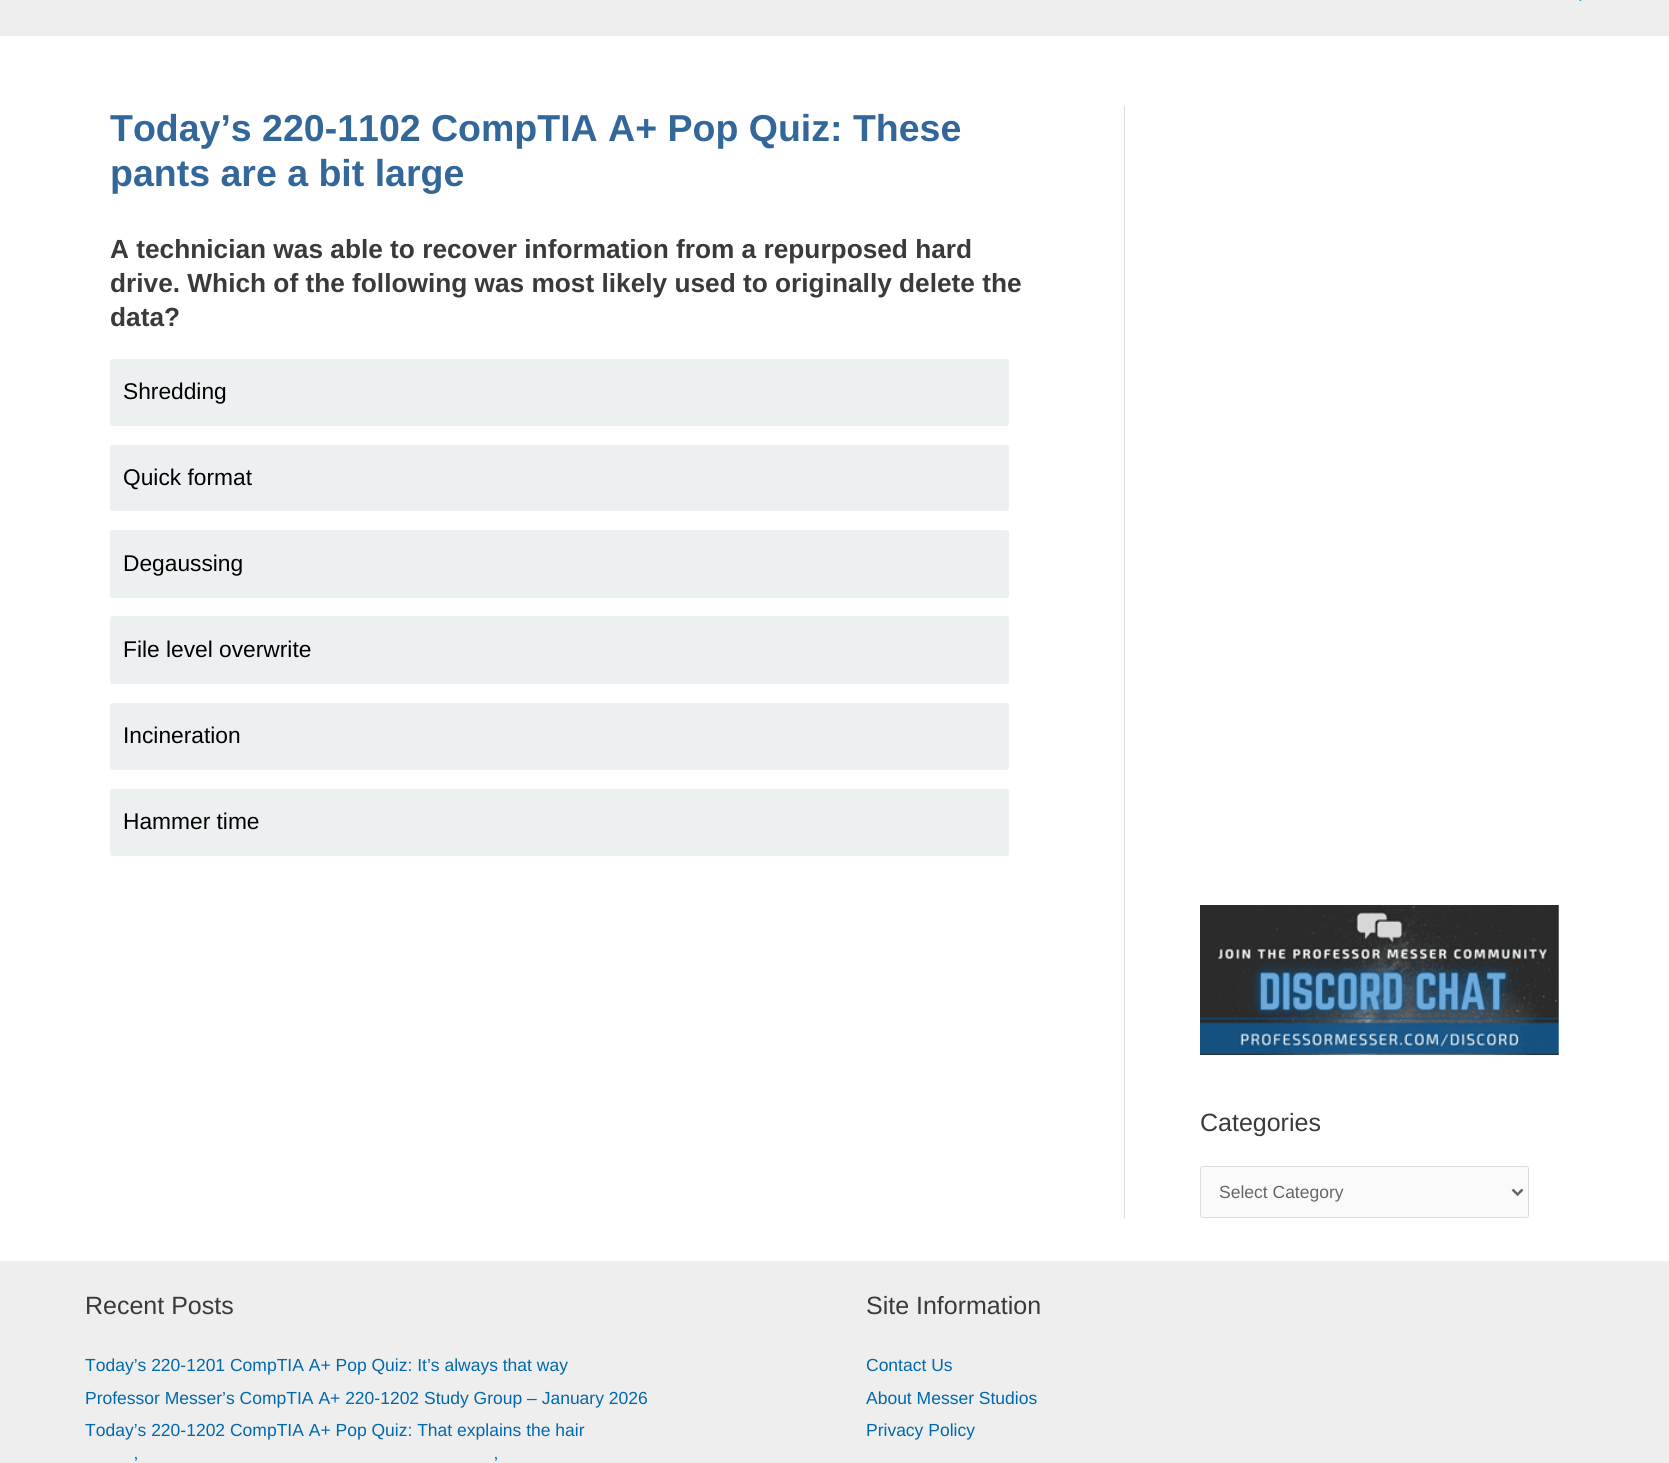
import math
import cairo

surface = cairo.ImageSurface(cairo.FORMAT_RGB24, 1669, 1463)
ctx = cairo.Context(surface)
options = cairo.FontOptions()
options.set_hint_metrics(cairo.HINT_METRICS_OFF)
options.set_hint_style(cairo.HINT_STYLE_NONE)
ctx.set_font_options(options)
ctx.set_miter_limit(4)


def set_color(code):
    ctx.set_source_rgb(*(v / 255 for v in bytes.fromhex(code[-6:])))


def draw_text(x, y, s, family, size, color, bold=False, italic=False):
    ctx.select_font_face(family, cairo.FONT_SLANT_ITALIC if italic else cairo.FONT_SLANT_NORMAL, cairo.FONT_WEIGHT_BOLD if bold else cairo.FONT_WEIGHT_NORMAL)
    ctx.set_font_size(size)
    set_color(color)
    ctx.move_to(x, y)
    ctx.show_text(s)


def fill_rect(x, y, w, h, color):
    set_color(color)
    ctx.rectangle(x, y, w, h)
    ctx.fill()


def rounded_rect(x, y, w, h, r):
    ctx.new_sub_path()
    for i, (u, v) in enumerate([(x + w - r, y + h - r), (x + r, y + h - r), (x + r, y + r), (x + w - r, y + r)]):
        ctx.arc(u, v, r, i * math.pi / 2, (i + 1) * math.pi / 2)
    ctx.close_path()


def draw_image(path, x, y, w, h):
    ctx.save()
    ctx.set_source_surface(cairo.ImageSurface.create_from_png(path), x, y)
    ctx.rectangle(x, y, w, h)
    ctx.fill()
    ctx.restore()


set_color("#ffffff")
ctx.paint()
fill_rect(0, 0, 1669, 36, "#eeeeee")
draw_image("assets/img1.png", 1579, 0, 3, 1)
draw_text(110, 141, "Today’s 220-1102 CompTIA A+ Pop Quiz: These", "Liberation Sans", 37.5, "#336699", bold=True)
draw_text(110, 186, "pants are a bit large", "Liberation Sans", 37.5, "#336699", bold=True)
draw_text(110, 258, "A technician was able to recover information from a repurposed hard", "Liberation Sans", 26.25, "#3a3a3a", bold=True)
draw_text(110, 292, "drive. Which of the following was most likely used to originally delete the", "Liberation Sans", 26.25, "#3a3a3a", bold=True)
draw_text(110, 326, "data?", "Liberation Sans", 26.25, "#3a3a3a", bold=True)
set_color("#ecf0f1")
rounded_rect(112, 361, 895, 63, 0.5)
ctx.fill_preserve()
ctx.set_line_width(4)
ctx.stroke()
draw_text(123, 399, "Shredding", "Liberation Sans", 22.75, "#000000")
set_color("#ecf0f1")
rounded_rect(112, 447, 895, 62, 0.5)
ctx.fill_preserve()
ctx.stroke()
draw_text(123, 485, "Quick format", "Liberation Sans", 22.75, "#000000")
set_color("#ecf0f1")
rounded_rect(112, 532, 895, 64, 0.5)
ctx.fill_preserve()
ctx.stroke()
draw_text(123, 571, "Degaussing", "Liberation Sans", 22.75, "#000000")
set_color("#ecf0f1")
rounded_rect(112, 618, 895, 64, 0.5)
ctx.fill_preserve()
ctx.stroke()
draw_text(123, 657, "File level overwrite", "Liberation Sans", 22.75, "#000000")
set_color("#ecf0f1")
rounded_rect(112, 705, 895, 63, 0.5)
ctx.fill_preserve()
ctx.stroke()
draw_text(123, 743, "Incineration", "Liberation Sans", 22.75, "#000000")
set_color("#ecf0f1")
rounded_rect(112, 791, 895, 63, 0.5)
ctx.fill_preserve()
ctx.stroke()
draw_text(123, 829, "Hammer time", "Liberation Sans", 22.75, "#000000")
fill_rect(1124, 106, 1, 1112, "#dddddd")
draw_image("assets/img2.png", 1200, 905, 359, 150)
draw_text(1200, 1131, "Categories", "Liberation Sans", 25, "#3a3a3a")
set_color("#fafafa")
rounded_rect(1200.5, 1166.5, 328, 51, 2)
ctx.fill_preserve()
set_color("#dddddd")
ctx.set_line_width(1)
ctx.stroke()
ctx.new_path()
ctx.move_to(1512.5, 1189.5)
ctx.line_to(1517.5, 1194.5)
ctx.line_to(1522.5, 1189.5)
set_color("#666666")
ctx.set_line_width(2.5)
ctx.stroke()
draw_text(1219, 1198, "Select Category", "Liberation Sans", 17.5, "#666666")
fill_rect(0, 1261, 1669, 202, "#eeeeee")
draw_text(85, 1314, "Recent Posts", "Liberation Sans", 25, "#3a3a3a")
draw_text(85, 1371, "Today’s 220-1201 CompTIA A+ Pop Quiz: It’s always that way", "Liberation Sans", 17.5, "#0268ac")
draw_text(85, 1404, "Professor Messer’s CompTIA A+ 220-1202 Study Group – January 2026", "Liberation Sans", 17.5, "#0268ac")
draw_text(85, 1436, "Today’s 220-1202 CompTIA A+ Pop Quiz: That explains the hair", "Liberation Sans", 17.5, "#0268ac")
draw_text(134, 1469, "’", "Liberation Sans", 17.5, "#0268ac")
draw_text(494, 1469, "’", "Liberation Sans", 17.5, "#0268ac")
draw_text(866, 1314, "Site Information", "Liberation Sans", 25, "#3a3a3a")
draw_text(866, 1371, "Contact Us", "Liberation Sans", 17.5, "#0268ac")
draw_text(866, 1404, "About Messer Studios", "Liberation Sans", 17.5, "#0268ac")
draw_text(866, 1436, "Privacy Policy", "Liberation Sans", 17.5, "#0268ac")
surface.write_to_png("output.png")
